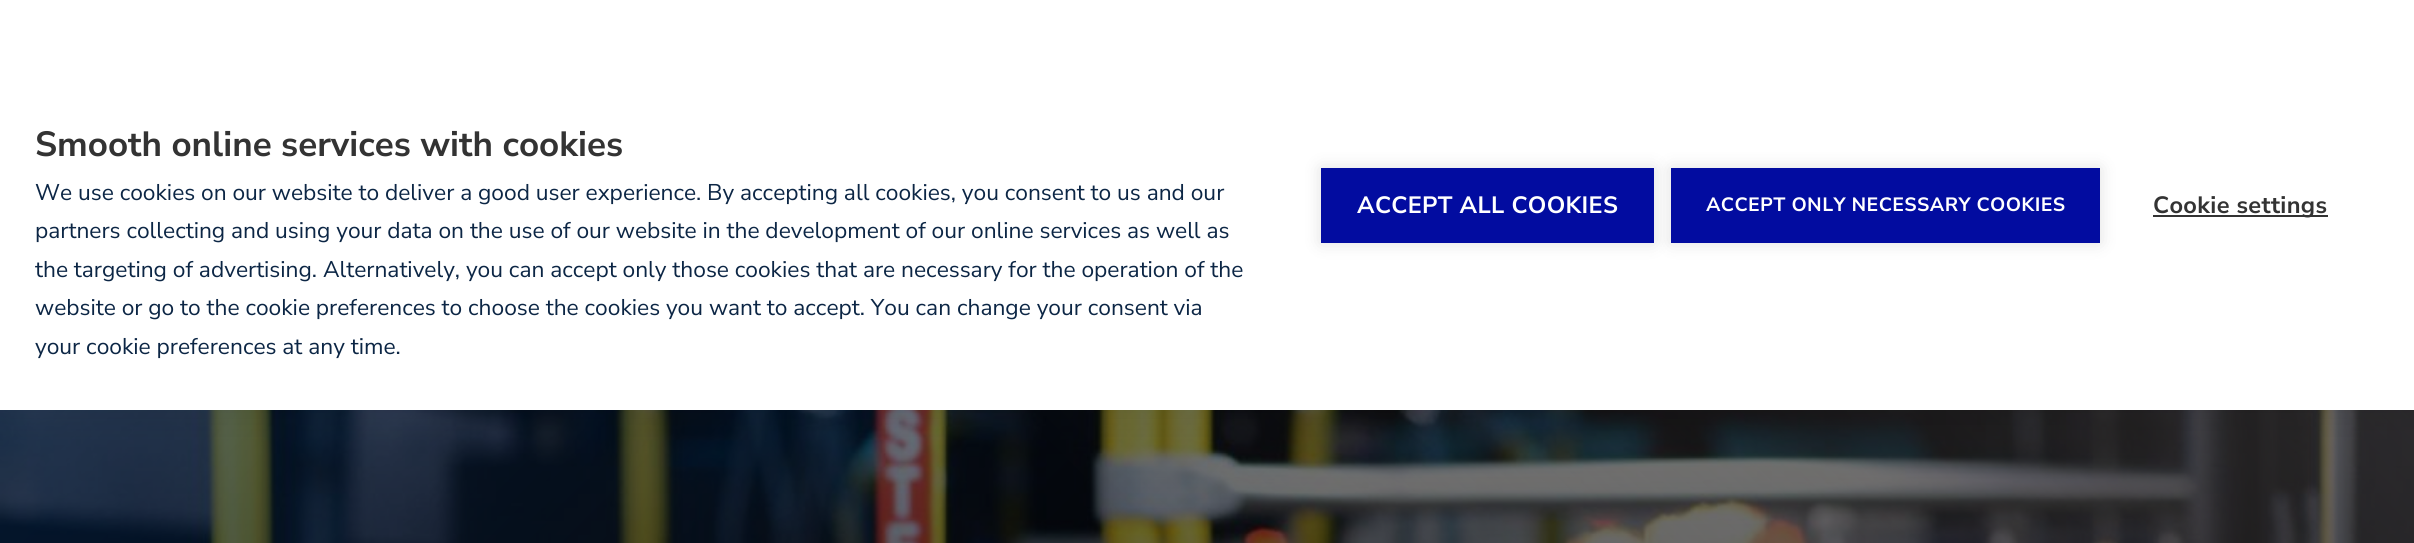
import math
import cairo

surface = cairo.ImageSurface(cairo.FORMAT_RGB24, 2414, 543)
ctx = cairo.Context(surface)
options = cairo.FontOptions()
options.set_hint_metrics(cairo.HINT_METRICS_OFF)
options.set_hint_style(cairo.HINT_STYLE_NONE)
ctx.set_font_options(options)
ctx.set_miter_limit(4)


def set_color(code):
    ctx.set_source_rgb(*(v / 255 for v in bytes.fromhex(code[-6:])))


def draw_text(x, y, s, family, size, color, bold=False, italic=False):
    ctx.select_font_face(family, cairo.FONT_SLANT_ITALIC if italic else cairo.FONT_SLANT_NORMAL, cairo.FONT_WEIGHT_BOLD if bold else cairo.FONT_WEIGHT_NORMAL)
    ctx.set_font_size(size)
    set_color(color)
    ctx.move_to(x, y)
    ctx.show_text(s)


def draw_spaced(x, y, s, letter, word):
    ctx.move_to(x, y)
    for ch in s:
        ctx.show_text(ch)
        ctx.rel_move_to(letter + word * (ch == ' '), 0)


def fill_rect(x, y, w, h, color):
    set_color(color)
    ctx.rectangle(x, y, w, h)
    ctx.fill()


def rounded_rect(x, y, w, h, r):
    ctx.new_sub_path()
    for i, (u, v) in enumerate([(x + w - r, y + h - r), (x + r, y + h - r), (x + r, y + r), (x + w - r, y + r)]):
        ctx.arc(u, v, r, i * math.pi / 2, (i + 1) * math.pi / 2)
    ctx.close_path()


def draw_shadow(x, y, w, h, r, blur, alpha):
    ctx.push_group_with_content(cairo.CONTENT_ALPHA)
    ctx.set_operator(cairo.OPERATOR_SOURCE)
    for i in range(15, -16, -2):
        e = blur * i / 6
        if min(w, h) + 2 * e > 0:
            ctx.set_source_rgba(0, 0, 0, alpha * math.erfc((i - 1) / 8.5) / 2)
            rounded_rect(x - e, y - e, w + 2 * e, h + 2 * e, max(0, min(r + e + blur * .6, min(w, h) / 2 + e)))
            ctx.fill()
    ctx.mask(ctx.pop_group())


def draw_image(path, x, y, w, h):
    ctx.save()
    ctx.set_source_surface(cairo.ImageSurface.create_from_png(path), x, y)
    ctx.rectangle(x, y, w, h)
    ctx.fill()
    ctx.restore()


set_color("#ffffff")
ctx.paint()
draw_image("assets/img1.png", 0, 410, 2414, 133)
set_color("#000000")
draw_shadow(0, 0, 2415, 410, 0, 17.5, 0.1)
fill_rect(0, 0, 2414, 410, "#ffffff")
draw_text(35, 156, "Smooth online services with cookies", "Nunito Sans", 35, "#333333", bold=True)
draw_text(35, 200, "We use cookies on our website to deliver a good user experience. By accepting all cookies, you consent to us and our", "Nunito Sans", 22.75, "#0c2645")
draw_text(35, 238, "partners collecting and using your data on the use of our website in the development of our online services as well as", "Nunito Sans", 22.75, "#0c2645")
draw_text(35, 277, "the targeting of advertising. Alternatively, you can accept only those cookies that are necessary for the operation of the", "Nunito Sans", 22.75, "#0c2645")
draw_text(35, 315, "website or go to the cookie preferences to choose the cookies you want to accept. You can change your consent via", "Nunito Sans", 22.75, "#0c2645")
draw_text(35, 354, "your cookie preferences at any time.", "Nunito Sans", 22.75, "#0c2645")
set_color("#000000")
draw_shadow(1321, 168, 333, 75, 0, 9, 0.12)
fill_rect(1321, 168, 333, 75, "#020ca0")
ctx.select_font_face("Nunito Sans", cairo.FONT_SLANT_NORMAL, cairo.FONT_WEIGHT_BOLD)
ctx.set_font_size(23.6)
set_color("#ffffff")
draw_spaced(1357, 213, "ACCEPT ALL COOKIES", 0.35, 0)
set_color("#000000")
draw_shadow(1671, 168, 429, 75, 0, 9, 0.12)
fill_rect(1671, 168, 429, 75, "#020ca0")
ctx.select_font_face("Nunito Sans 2", cairo.FONT_SLANT_NORMAL, cairo.FONT_WEIGHT_BOLD)
ctx.set_font_size(19.25)
set_color("#ffffff")
draw_spaced(1706, 211, "ACCEPT ONLY NECESSARY COOKIES", 0.35, 0)
fill_rect(2153, 215, 175, 2, "#333333")
ctx.select_font_face("Nunito Sans", cairo.FONT_SLANT_NORMAL, cairo.FONT_WEIGHT_BOLD)
ctx.set_font_size(23.6)
draw_spaced(2153, 213, "Cookie settings", 0.35, 0)
surface.write_to_png("output.png")
